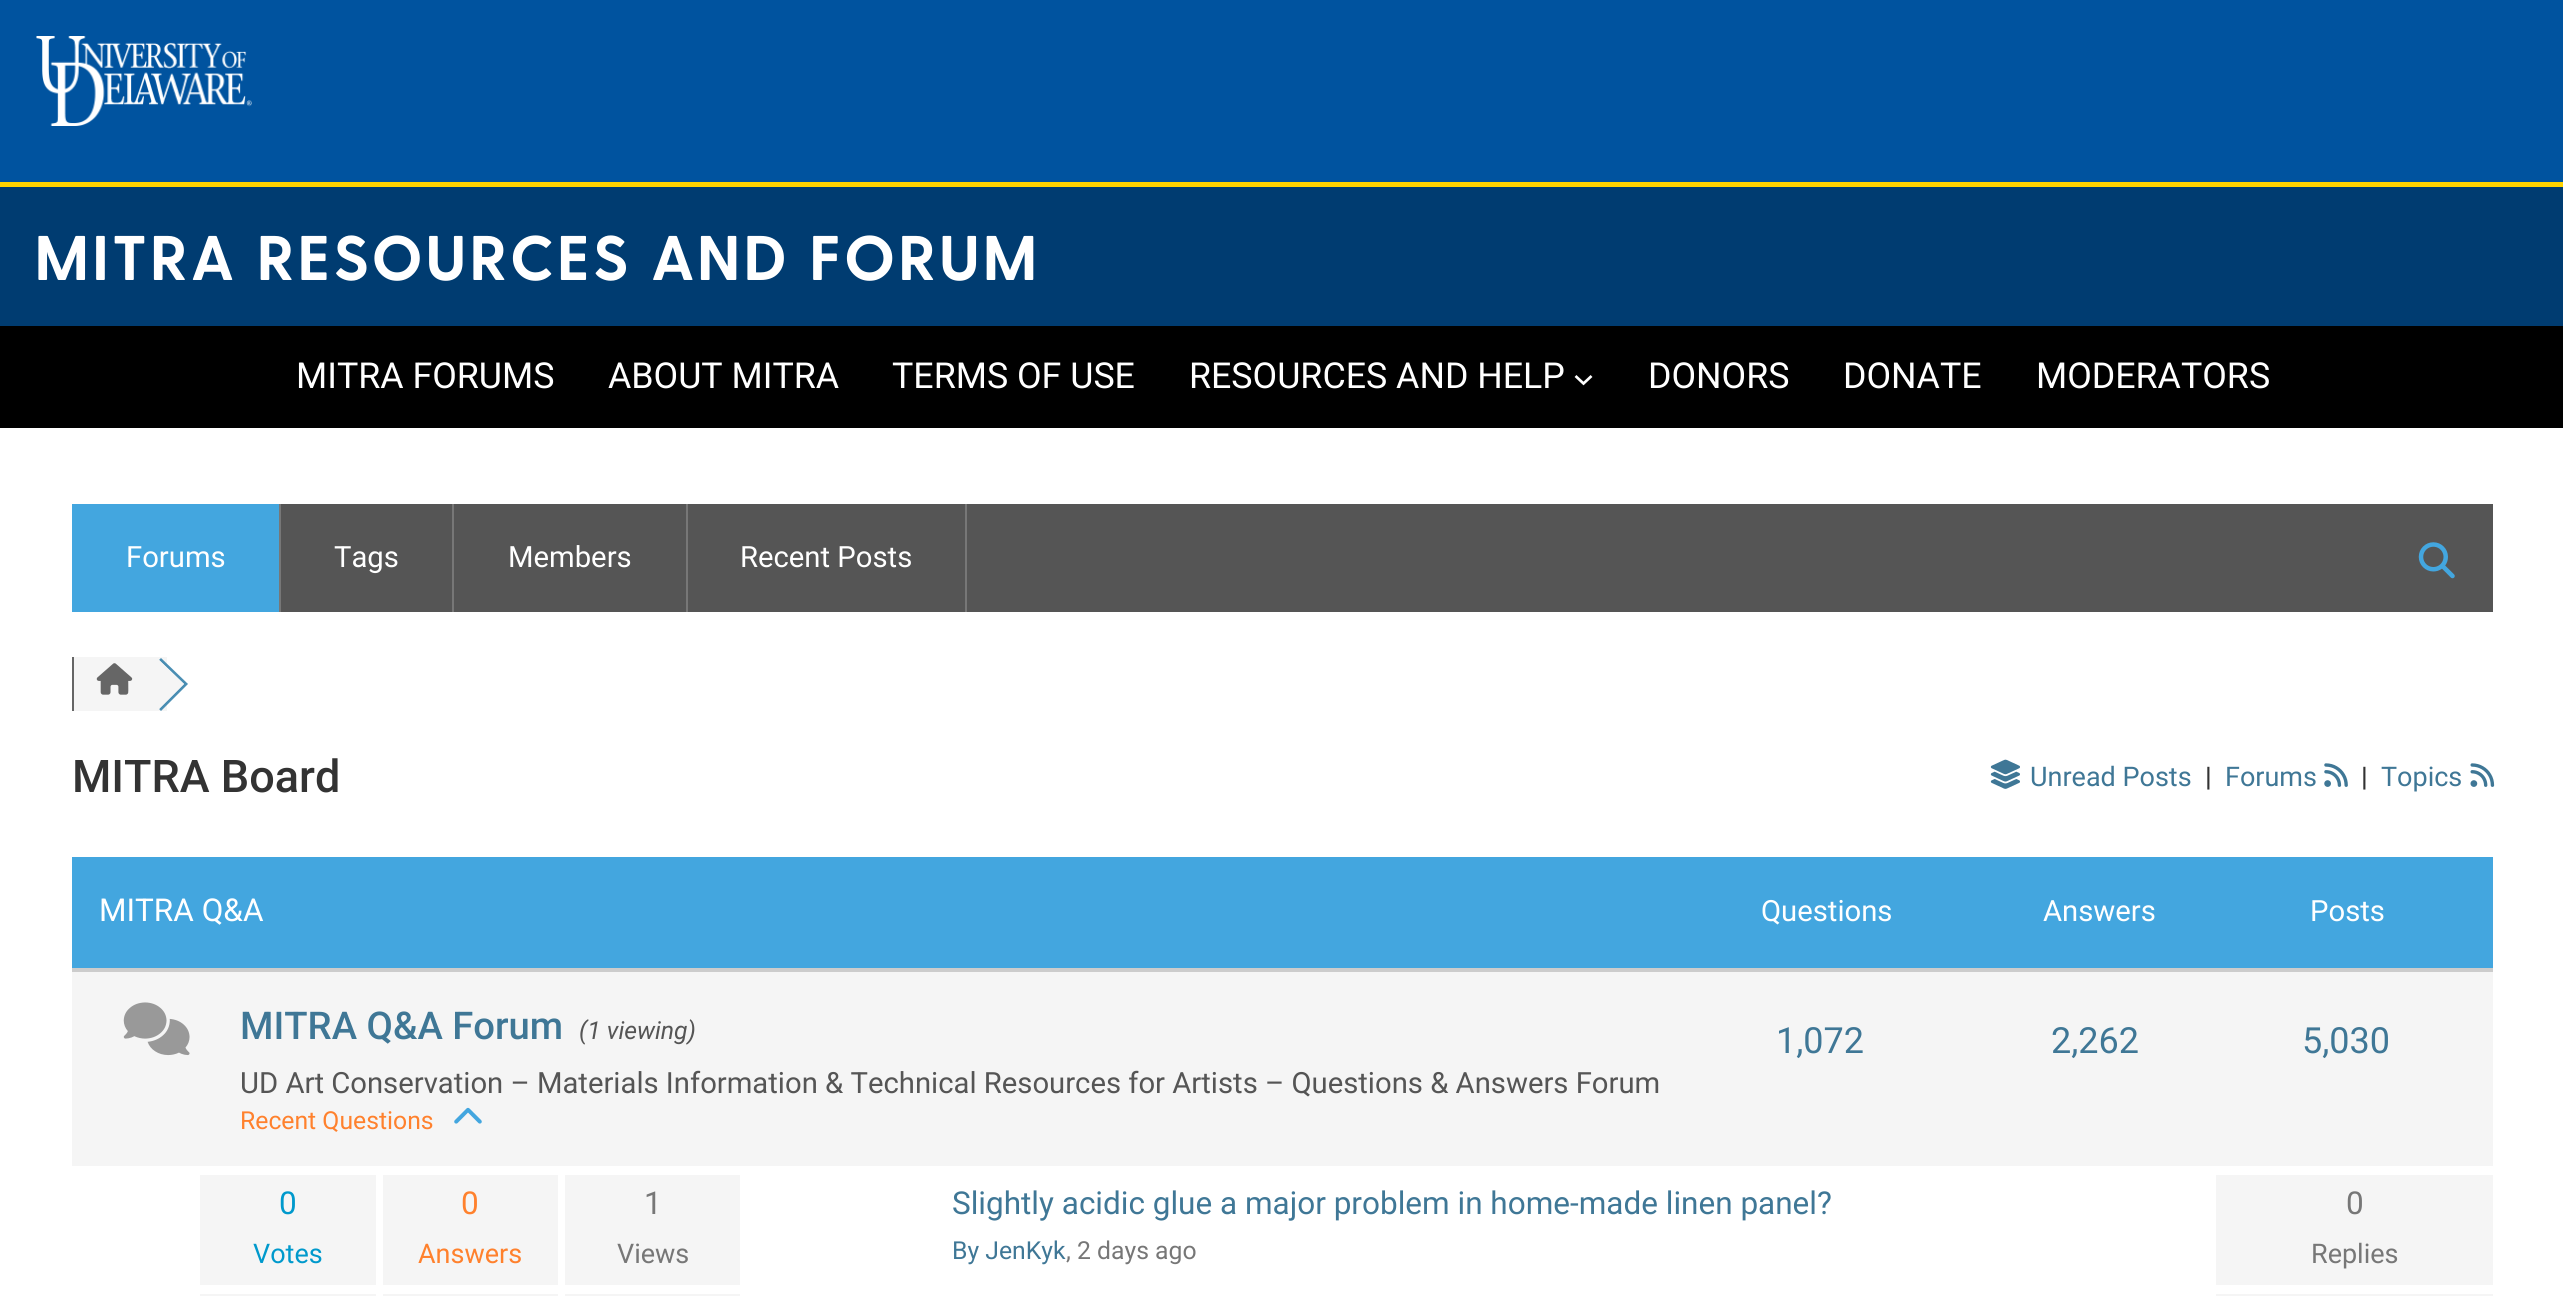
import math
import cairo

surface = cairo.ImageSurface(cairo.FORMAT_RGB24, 2563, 1296)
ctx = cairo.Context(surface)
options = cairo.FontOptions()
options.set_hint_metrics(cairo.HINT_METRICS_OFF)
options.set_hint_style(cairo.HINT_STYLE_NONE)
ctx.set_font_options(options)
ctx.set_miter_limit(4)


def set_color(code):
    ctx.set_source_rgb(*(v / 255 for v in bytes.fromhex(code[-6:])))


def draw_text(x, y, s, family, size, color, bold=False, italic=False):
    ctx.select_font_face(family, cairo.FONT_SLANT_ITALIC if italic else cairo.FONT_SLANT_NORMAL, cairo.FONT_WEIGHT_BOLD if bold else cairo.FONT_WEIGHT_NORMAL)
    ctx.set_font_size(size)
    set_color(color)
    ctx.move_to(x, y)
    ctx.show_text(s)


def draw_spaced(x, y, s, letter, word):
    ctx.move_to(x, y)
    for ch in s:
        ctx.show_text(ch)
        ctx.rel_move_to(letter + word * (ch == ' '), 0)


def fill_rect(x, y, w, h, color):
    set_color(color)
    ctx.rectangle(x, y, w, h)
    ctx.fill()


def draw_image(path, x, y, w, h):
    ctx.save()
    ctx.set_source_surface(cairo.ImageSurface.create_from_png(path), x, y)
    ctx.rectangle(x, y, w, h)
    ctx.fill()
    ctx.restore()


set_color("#ffffff")
ctx.paint()
fill_rect(0, 0, 2563, 182, "#00539f")
fill_rect(0, 182, 2563, 5, "#ffd300")
draw_image("assets/img1.png", 36, 36, 216, 90)
fill_rect(0, 187, 2563, 139, "#003c71")
ctx.select_font_face("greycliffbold", cairo.FONT_SLANT_NORMAL, cairo.FONT_WEIGHT_BOLD)
ctx.set_font_size(63)
set_color("#ffffff")
draw_spaced(34, 280, "MITRA RESOURCES AND FORUM", 2.25, 0)
fill_rect(0, 326, 2563, 102, "#000000")
draw_text(296, 388, "MITRA FORUMS", "Roboto", 35.75, "#ffffff")
draw_text(608, 388, "ABOUT MITRA", "Roboto", 35.75, "#ffffff")
draw_text(892, 388, "TERMS OF USE", "Roboto", 35.75, "#ffffff")
draw_text(1189, 388, "RESOURCES AND HELP", "Roboto", 35.75, "#ffffff")
ctx.new_path()
ctx.move_to(1575.5, 376)
ctx.line_to(1583.5, 383.5)
ctx.line_to(1591.5, 376)
ctx.set_line_width(2.7)
ctx.stroke()
draw_text(1648, 388, "DONORS", "Roboto", 35.75, "#ffffff")
draw_text(1843, 388, "DONATE", "Roboto", 35.75, "#ffffff")
draw_text(2036, 388, "MODERATORS", "Roboto", 35.75, "#ffffff")
fill_rect(281, 504, 2212, 108, "#555555")
fill_rect(72, 504, 207, 108, "#43a6df")
fill_rect(279, 504, 2, 108, "#777777")
draw_text(126, 567, "Forums", "Roboto", 29.25, "#ffffff")
fill_rect(452, 504, 2, 108, "#777777")
draw_text(334, 567, "Tags", "Roboto", 29.25, "#ffffff")
fill_rect(686, 504, 2, 108, "#777777")
draw_text(508, 567, "Members", "Roboto", 29.25, "#ffffff")
fill_rect(965, 504, 2, 108, "#777777")
draw_text(740, 567, "Recent Posts", "Roboto", 29.25, "#ffffff")
draw_image("assets/img2.png", 2418, 542, 37, 37)
fill_rect(74, 657, 93, 54, "#f5f5f5")
fill_rect(72, 657, 2, 54, "#666666")
draw_image("assets/img3.png", 96, 663, 37, 32)
set_color("#4a8eb3")
ctx.new_path()
ctx.move_to(161, 658)
ctx.line_to(159, 660)
ctx.line_to(184, 684)
ctx.line_to(159, 709)
ctx.line_to(161, 711)
ctx.line_to(188, 684)
ctx.close_path()
ctx.fill()
set_color("#f5f5f5")
ctx.new_path()
ctx.move_to(157, 658)
ctx.line_to(184, 684)
ctx.line_to(157, 711)
ctx.line_to(130, 684)
ctx.close_path()
ctx.fill()
draw_text(72, 792, "MITRA Board", "Roboto Medium", 45, "#333333")
draw_image("assets/img4.png", 1990, 759, 30, 30)
draw_text(2030, 786, "Unread Posts", "Roboto", 27, "#3f7796")
draw_text(2205, 786, "|", "Roboto Medium", 27, "#333333")
draw_text(2225, 786, "Forums", "Roboto", 27, "#3f7796")
draw_image("assets/img5.png", 2324, 763, 24, 24)
draw_text(2361, 786, "|", "Roboto Medium", 27, "#333333")
draw_text(2381, 786, "Topics", "Roboto", 27, "#3f7796")
draw_image("assets/img6.png", 2470, 763, 25, 24)
fill_rect(72, 857, 2421, 111, "#43a6df")
fill_rect(72, 968, 2421, 4, "#cccccc")
draw_text(99, 921, "MITRA Q&A", "Roboto", 31.5, "#ffffff")
draw_text(1761, 921, "Questions", "Roboto", 29.25, "#ffffff")
draw_text(2043, 921, "Answers", "Roboto", 29.25, "#ffffff")
draw_text(2310, 921, "Posts", "Roboto", 29.25, "#ffffff")
fill_rect(72, 972, 2421, 194, "#f5f5f5")
draw_image("assets/img7.png", 123, 1002, 67, 54)
draw_text(240, 1039, "MITRA Q&A Forum", "Roboto Medium", 38.25, "#3f7796")
draw_text(579, 1039, "(1 viewing)", "Roboto", 24.75, "#555555", italic=True)
draw_text(240, 1093, "UD Art Conservation – Materials Information & Technical Resources for Artists – Questions & Answers Forum", "Roboto", 29.25, "#555555")
draw_text(240, 1129, "Recent Questions", "Roboto", 24.75, "#ff812d")
draw_image("assets/img8.png", 454, 1107, 28, 17)
draw_text(1776, 1053, "1,072", "Roboto", 36, "#3f7796")
draw_text(2051, 1053, "2,262", "Roboto", 36, "#3f7796")
draw_text(2302, 1053, "5,030", "Roboto", 36, "#3f7796")
fill_rect(200, 1175, 176, 110, "#f5f5f5")
draw_text(279, 1214, "0", "Roboto", 31.5, "#0099cc")
draw_text(253, 1263, "Votes", "Roboto", 27, "#0099cc")
fill_rect(383, 1175, 175, 110, "#f5f5f5")
draw_text(461, 1214, "0", "Roboto", 31.5, "#ff812d")
draw_text(418, 1263, "Answers", "Roboto", 27, "#ff812d")
fill_rect(565, 1175, 175, 110, "#f5f5f5")
draw_text(644, 1214, "1", "Roboto", 31.5, "#777777")
draw_text(617, 1263, "Views", "Roboto", 27, "#777777")
draw_text(952, 1214, "Slightly acidic glue a major problem in home-made linen panel?", "Roboto", 31.5, "#3f7796")
draw_text(952, 1259, "By JenKyk", "Roboto", 24.75, "#3f7796")
draw_text(1066, 1259, ", 2 days ago", "Roboto", 24.75, "#777777")
fill_rect(2216, 1175, 277, 110, "#f5f5f5")
draw_text(2346, 1214, "0", "Roboto", 31.5, "#777777")
draw_text(2311, 1263, "Replies", "Roboto", 27, "#777777")
fill_rect(200, 1294, 176, 2, "#f5f5f5")
fill_rect(383, 1294, 175, 2, "#f5f5f5")
fill_rect(565, 1294, 175, 2, "#f5f5f5")
fill_rect(2216, 1294, 277, 2, "#f5f5f5")
surface.write_to_png("output.png")
